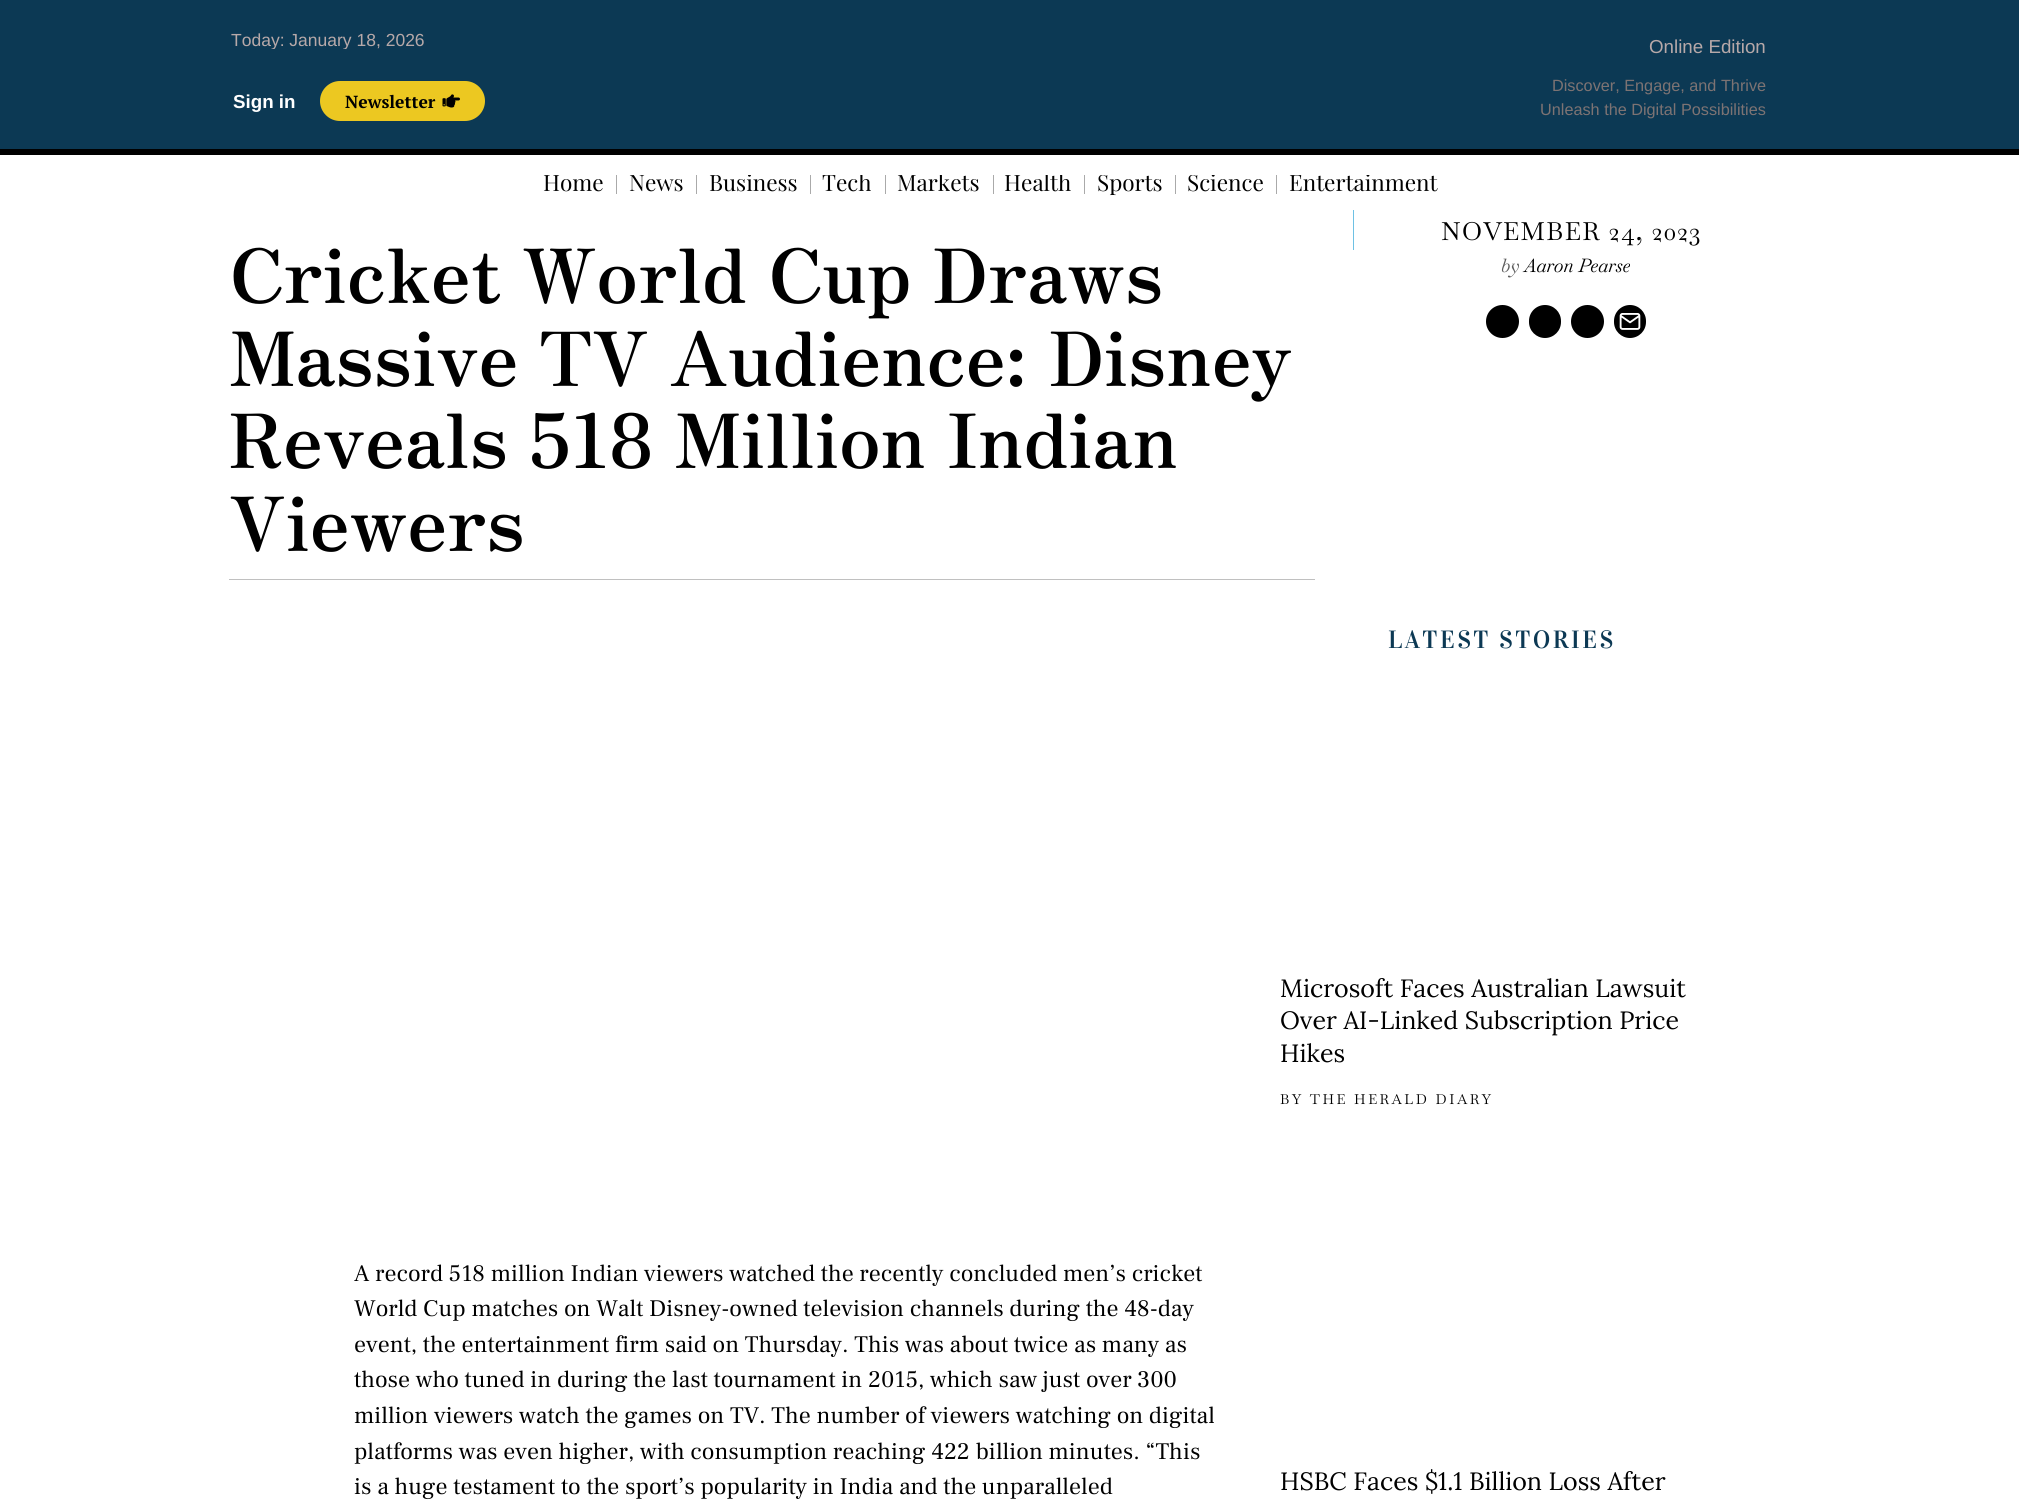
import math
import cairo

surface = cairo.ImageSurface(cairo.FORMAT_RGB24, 2019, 1508)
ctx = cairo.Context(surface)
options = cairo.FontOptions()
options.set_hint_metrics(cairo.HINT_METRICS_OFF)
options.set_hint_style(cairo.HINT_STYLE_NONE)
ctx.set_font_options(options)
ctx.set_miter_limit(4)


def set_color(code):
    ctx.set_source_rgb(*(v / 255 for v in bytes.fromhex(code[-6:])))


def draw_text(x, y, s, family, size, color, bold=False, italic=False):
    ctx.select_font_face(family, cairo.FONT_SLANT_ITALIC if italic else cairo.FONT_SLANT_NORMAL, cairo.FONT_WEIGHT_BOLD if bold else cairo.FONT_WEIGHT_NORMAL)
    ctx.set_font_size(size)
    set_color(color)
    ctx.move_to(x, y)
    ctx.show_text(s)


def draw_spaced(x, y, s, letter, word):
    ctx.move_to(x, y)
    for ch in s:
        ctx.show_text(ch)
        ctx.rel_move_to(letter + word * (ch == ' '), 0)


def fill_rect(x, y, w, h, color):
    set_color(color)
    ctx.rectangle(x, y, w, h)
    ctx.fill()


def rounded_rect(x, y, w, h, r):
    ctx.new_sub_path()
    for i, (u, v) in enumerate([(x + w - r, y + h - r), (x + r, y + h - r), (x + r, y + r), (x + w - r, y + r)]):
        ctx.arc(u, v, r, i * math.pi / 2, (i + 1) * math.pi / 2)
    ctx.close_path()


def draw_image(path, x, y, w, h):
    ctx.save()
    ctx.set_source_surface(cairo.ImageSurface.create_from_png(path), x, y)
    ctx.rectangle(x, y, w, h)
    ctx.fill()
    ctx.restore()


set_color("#ffffff")
ctx.paint()
fill_rect(0, 0, 2019, 149, "#0c3954")
draw_text(231, 46, "Today: January 18, 2026", "Liberation Sans", 17.5, "#b7a9a9")
fill_rect(271, 49, 76, 1, "#0c3954")
draw_text(233, 108, "Sign in", "Liberation Sans", 18.75, "#ffffff", bold=True)
set_color("#ecc821")
rounded_rect(320, 81, 165, 40, 20)
ctx.fill()
draw_text(345, 108, "Newsletter", "PT Serif", 17.5, "#000000", bold=True)
draw_image("assets/img1.png", 442, 94, 18, 14)
draw_text(1649, 53, "Online Edition", "Liberation Sans", 18.75, "#b7a9a9")
draw_text(1552, 91, "Discover, Engage, and Thrive", "Liberation Sans", 16.25, "#7d7373")
draw_text(1540, 115, "Unleash the Digital Possibilities", "Liberation Sans", 16.25, "#7d7373")
fill_rect(0, 149, 2019, 6, "#000000")
draw_text(543, 191, "Home", "Playfair Display", 22.5, "#000000")
fill_rect(616, 175, 1, 19, "#aaaaaa")
draw_text(629, 191, "News", "Playfair Display", 22.5, "#000000")
fill_rect(696, 175, 1, 19, "#aaaaaa")
ctx.save()
ctx.rectangle(0, 175, 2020, 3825)
ctx.clip()
draw_text(709, 191, "Business", "Playfair Display", 22.5, "#000000")
ctx.restore()
fill_rect(810, 175, 1, 19, "#aaaaaa")
ctx.save()
ctx.rectangle(0, 175, 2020, 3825)
ctx.clip()
draw_text(822, 191, "Tech", "Playfair Display", 22.5, "#000000")
ctx.restore()
fill_rect(885, 175, 1, 19, "#aaaaaa")
ctx.save()
ctx.rectangle(0, 175, 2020, 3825)
ctx.clip()
draw_text(897, 191, "Markets", "Playfair Display", 22.5, "#000000")
ctx.restore()
fill_rect(993, 175, 1, 19, "#aaaaaa")
ctx.save()
ctx.rectangle(0, 175, 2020, 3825)
ctx.clip()
draw_text(1004, 191, "Health", "Playfair Display", 22.5, "#000000")
ctx.restore()
fill_rect(1084, 175, 1, 19, "#aaaaaa")
ctx.save()
ctx.rectangle(0, 175, 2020, 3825)
ctx.clip()
draw_text(1097, 191, "Sports", "Playfair Display", 22.5, "#000000")
ctx.restore()
fill_rect(1175, 175, 1, 19, "#aaaaaa")
ctx.save()
ctx.rectangle(0, 175, 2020, 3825)
ctx.clip()
draw_text(1187, 191, "Science", "Playfair Display", 22.5, "#000000")
ctx.restore()
fill_rect(1276, 175, 1, 19, "#aaaaaa")
ctx.save()
ctx.rectangle(0, 175, 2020, 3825)
ctx.clip()
draw_text(1289, 191, "Entertainment", "Playfair Display", 22.5, "#000000")
ctx.restore()
draw_text(229, 303, "Cricket World Cup Draws", "Zen Antique", 75, "#000000")
draw_text(229, 386, "Massive TV Audience: Disney", "Zen Antique", 75, "#000000")
draw_text(229, 468, "Reveals 518 Million Indian", "Zen Antique", 75, "#000000")
draw_text(229, 551, "Viewers", "Zen Antique", 75, "#000000")
fill_rect(229, 579, 1086, 1, "#c0c0c0")
fill_rect(1353, 210, 1, 40, "#6ec1e4")
ctx.select_font_face("Baskervville")
ctx.set_font_size(25)
set_color("#000000")
draw_spaced(1441, 240, "NOVEMBER 24, 2023", 1.25, 0)
draw_text(1501, 272, "by", "Baskervville", 18.75, "#5d5d5d", italic=True)
draw_text(1524, 272, "Aaron Pearse", "Baskervville", 18.75, "#000000", italic=True)
ctx.new_path()
ctx.arc(1502.5, 321.5, 16.5, 0, 2 * math.pi)
ctx.fill()
rounded_rect(1529, 305, 32, 33, 16)
ctx.fill()
ctx.arc(1587.5, 321.5, 16.5, 0, 2 * math.pi)
ctx.fill()
rounded_rect(1614, 305, 32, 33, 16)
ctx.fill()
draw_image("assets/img2.png", 1619, 313, 22, 17)
draw_text(354, 1281, "A record 518 million Indian viewers watched the recently concluded men’s cricket", "Frank Ruhl Libre", 23.75, "#000000")
draw_text(354, 1316, "World Cup matches on Walt Disney-owned television channels during the 48-day", "Frank Ruhl Libre", 23.75, "#000000")
draw_text(354, 1352, "event, the entertainment firm said on Thursday. This was about twice as many as", "Frank Ruhl Libre", 23.75, "#000000")
draw_text(354, 1387, "those who tuned in during the last tournament in 2015, which saw just over 300", "Frank Ruhl Libre", 23.75, "#000000")
draw_text(354, 1423, "million viewers watch the games on TV. The number of viewers watching on digital", "Frank Ruhl Libre", 23.75, "#000000")
draw_text(354, 1459, "platforms was even higher, with consumption reaching 422 billion minutes. “This", "Frank Ruhl Libre", 23.75, "#000000")
draw_text(354, 1494, "is a huge testament to the sport’s popularity in India and the unparalleled", "Frank Ruhl Libre", 23.75, "#000000")
ctx.select_font_face("Vidaloka")
ctx.set_font_size(25)
set_color("#0c3954")
draw_spaced(1388, 648, "LATEST STORIES", 2.5, 0)
draw_text(1280, 997, "Microsoft Faces Australian Lawsuit", "Lora", 25, "#000000")
draw_text(1280, 1029, "Over AI-Linked Subscription Price", "Lora", 25, "#000000")
draw_text(1280, 1062, "Hikes", "Lora", 25, "#000000")
ctx.select_font_face("Baskervville")
ctx.set_font_size(13.75)
draw_spaced(1280, 1104, "BY THE HERALD DIARY", 2.5, 0)
draw_text(1280, 1490, "HSBC Faces $1.1 Billion Loss After", "Lora", 25, "#000000")
surface.write_to_png("output.png")
